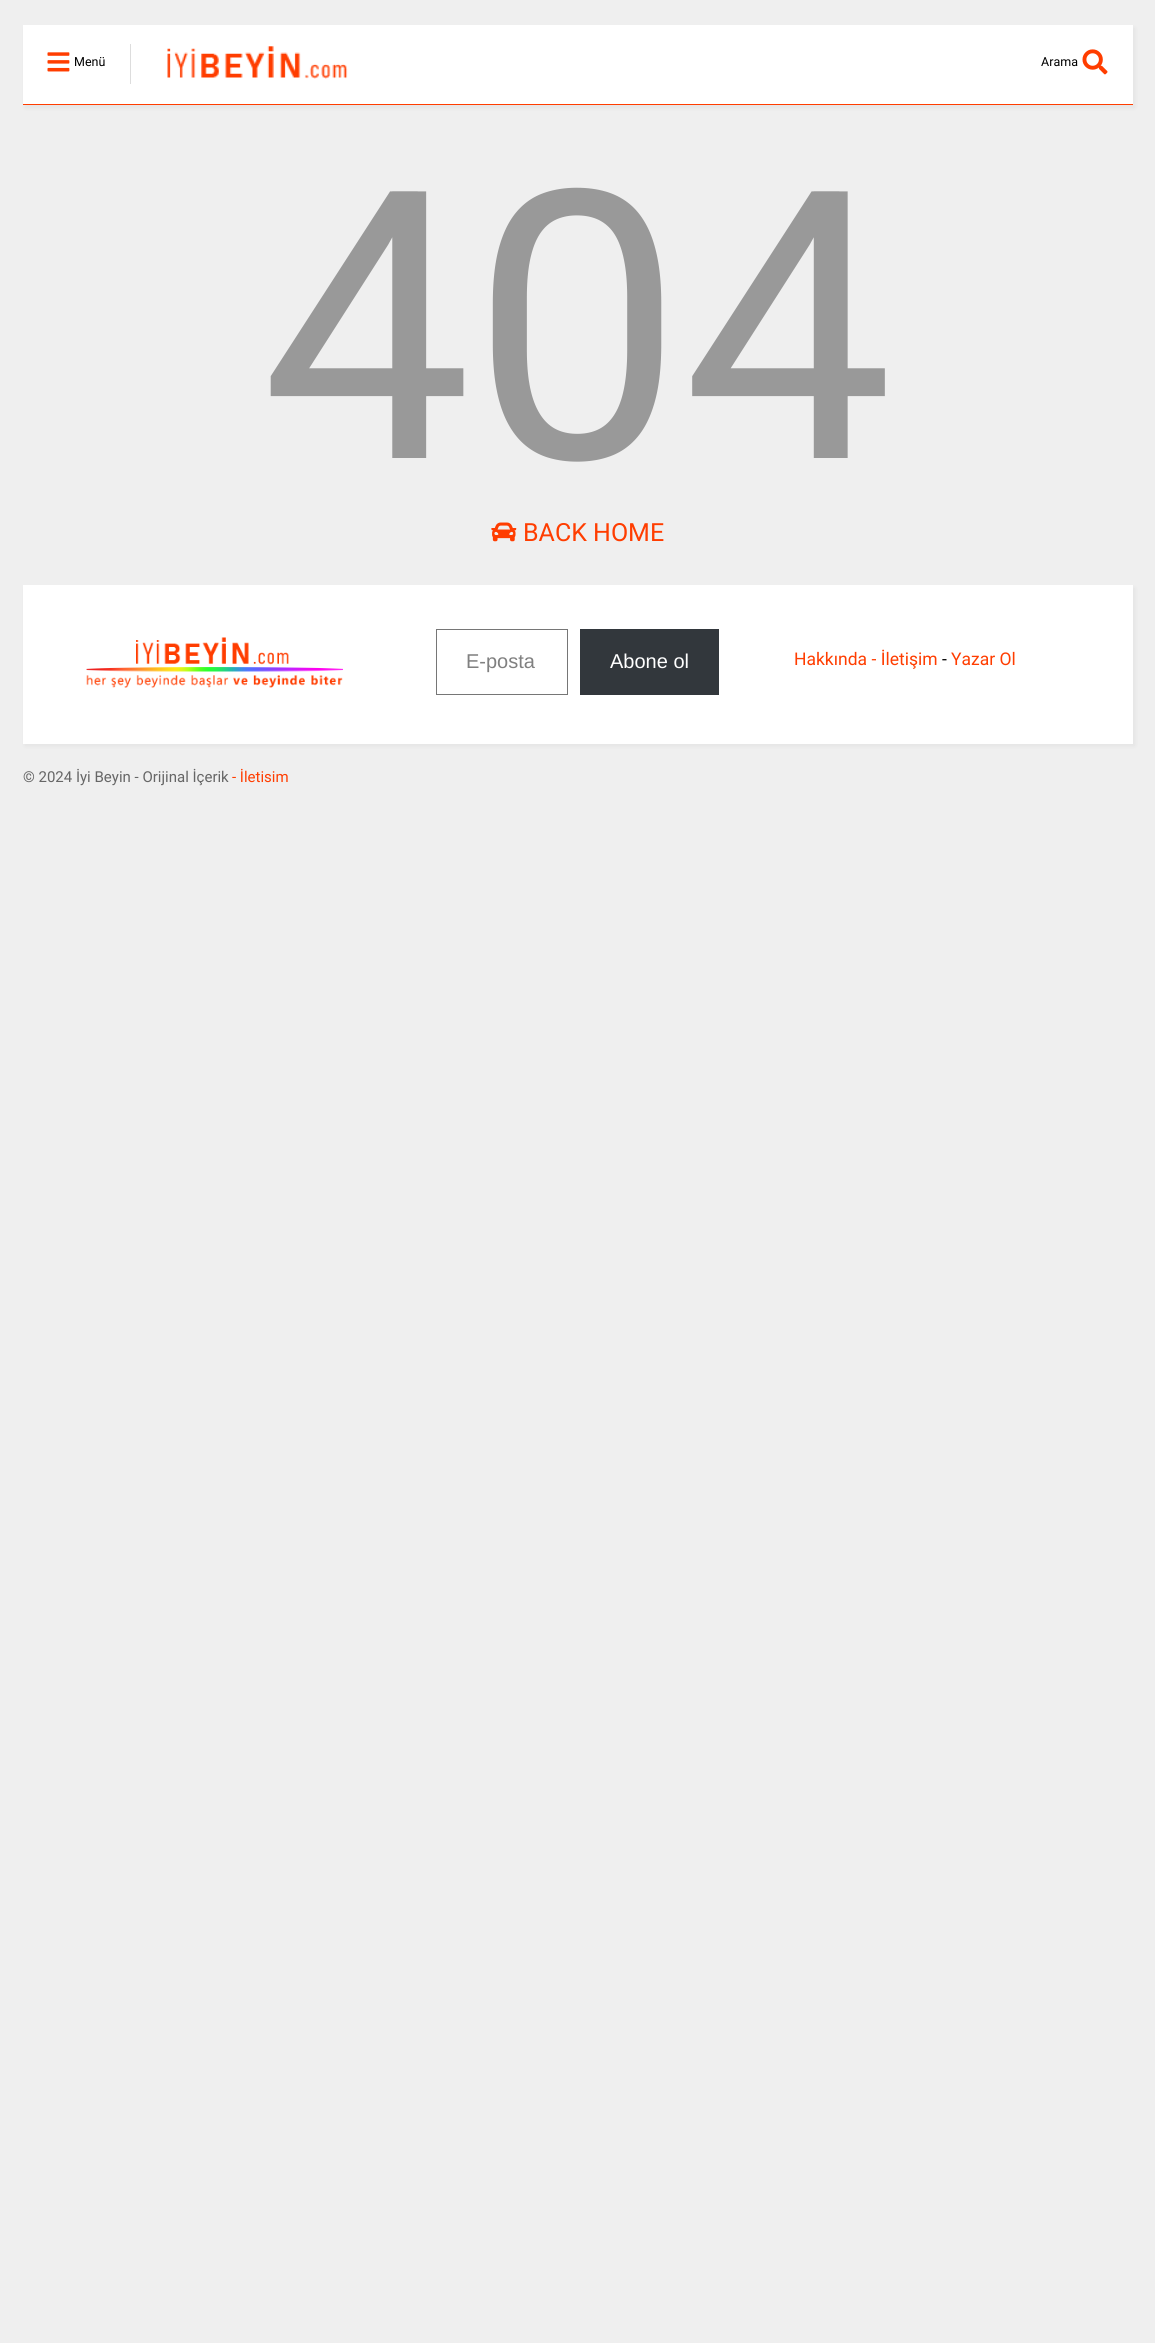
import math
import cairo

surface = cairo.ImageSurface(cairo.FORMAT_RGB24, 1155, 2343)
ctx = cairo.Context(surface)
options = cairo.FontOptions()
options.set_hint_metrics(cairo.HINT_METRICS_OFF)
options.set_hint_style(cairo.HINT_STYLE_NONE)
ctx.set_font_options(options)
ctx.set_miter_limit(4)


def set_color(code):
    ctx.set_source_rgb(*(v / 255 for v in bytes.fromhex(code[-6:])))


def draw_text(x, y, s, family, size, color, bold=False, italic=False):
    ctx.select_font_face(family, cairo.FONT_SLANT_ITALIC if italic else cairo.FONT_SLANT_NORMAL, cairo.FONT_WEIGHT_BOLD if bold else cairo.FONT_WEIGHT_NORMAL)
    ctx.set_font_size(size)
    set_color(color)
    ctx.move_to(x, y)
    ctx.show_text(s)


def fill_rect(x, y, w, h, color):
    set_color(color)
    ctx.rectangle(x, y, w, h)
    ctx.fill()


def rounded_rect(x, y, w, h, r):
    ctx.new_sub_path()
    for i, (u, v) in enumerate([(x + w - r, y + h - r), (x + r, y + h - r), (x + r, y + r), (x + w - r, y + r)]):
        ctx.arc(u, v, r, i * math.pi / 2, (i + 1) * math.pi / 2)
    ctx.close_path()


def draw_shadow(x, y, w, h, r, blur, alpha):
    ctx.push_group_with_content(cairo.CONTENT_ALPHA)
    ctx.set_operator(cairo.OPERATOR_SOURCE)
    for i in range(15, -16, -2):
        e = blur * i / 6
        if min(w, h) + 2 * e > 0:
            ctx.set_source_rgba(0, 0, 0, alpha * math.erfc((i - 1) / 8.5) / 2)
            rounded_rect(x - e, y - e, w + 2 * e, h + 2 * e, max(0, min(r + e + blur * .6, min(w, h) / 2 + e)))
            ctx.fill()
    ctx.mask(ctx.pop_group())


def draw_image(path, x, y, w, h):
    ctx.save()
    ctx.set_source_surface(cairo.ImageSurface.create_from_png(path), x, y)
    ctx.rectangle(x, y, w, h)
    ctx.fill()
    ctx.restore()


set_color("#efefef")
ctx.paint()
set_color("#000000")
draw_shadow(25, 28, 1110, 80, 0, 2, 0.05)
fill_rect(23, 25, 1110, 79, "#ffffff")
draw_image("assets/img1.png", 47, 52, 23, 20)
draw_text(74, 66, "Menü", "Roboto", 12.5, "#000000")
fill_rect(130, 44, 1, 40, "#dddddd")
draw_image("assets/img2.png", 167, 46, 181, 33)
draw_text(1041, 66, "Arama", "Roboto", 12.5, "#000000")
draw_image("assets/img3.png", 1082, 49, 26, 26)
fill_rect(23, 104, 1110, 1, "#ff3d00")
draw_text(261, 458, "404", "Roboto", 375, "#999999")
draw_image("assets/img4.png", 491, 522, 26, 20)
draw_text(523, 541, "BACK HOME", "Roboto", 25, "#ff3d00")
set_color("#000000")
draw_shadow(25, 588, 1110, 158, 0, 2, 0.05)
fill_rect(23, 585, 1110, 159, "#ffffff")
draw_image("assets/img5.png", 86, 637, 257, 51)
ctx.rectangle(436.5, 629.5, 131, 65)
set_color("#767676")
ctx.set_line_width(1)
ctx.stroke()
draw_text(466, 668, "E-posta", "Liberation Sans", 20, "#808080")
fill_rect(580, 629, 139, 66, "#32373c")
draw_text(610, 668, "Abone ol", "Liberation Sans", 20, "#ffffff")
draw_text(794, 665, "Hakkında - İletişim", "Roboto", 17.5, "#ff3d00")
draw_text(942, 665, "-", "Roboto", 17.5, "#000000")
draw_text(951, 665, "Yazar Ol", "Roboto", 17.5, "#ff3d00")
draw_text(23, 782, "© 2024 İyi Beyin - Orijinal İçerik", "Roboto", 15, "#666666")
draw_text(232, 782, "- İletisim", "Roboto", 15, "#ff3d00")
surface.write_to_png("output.png")
